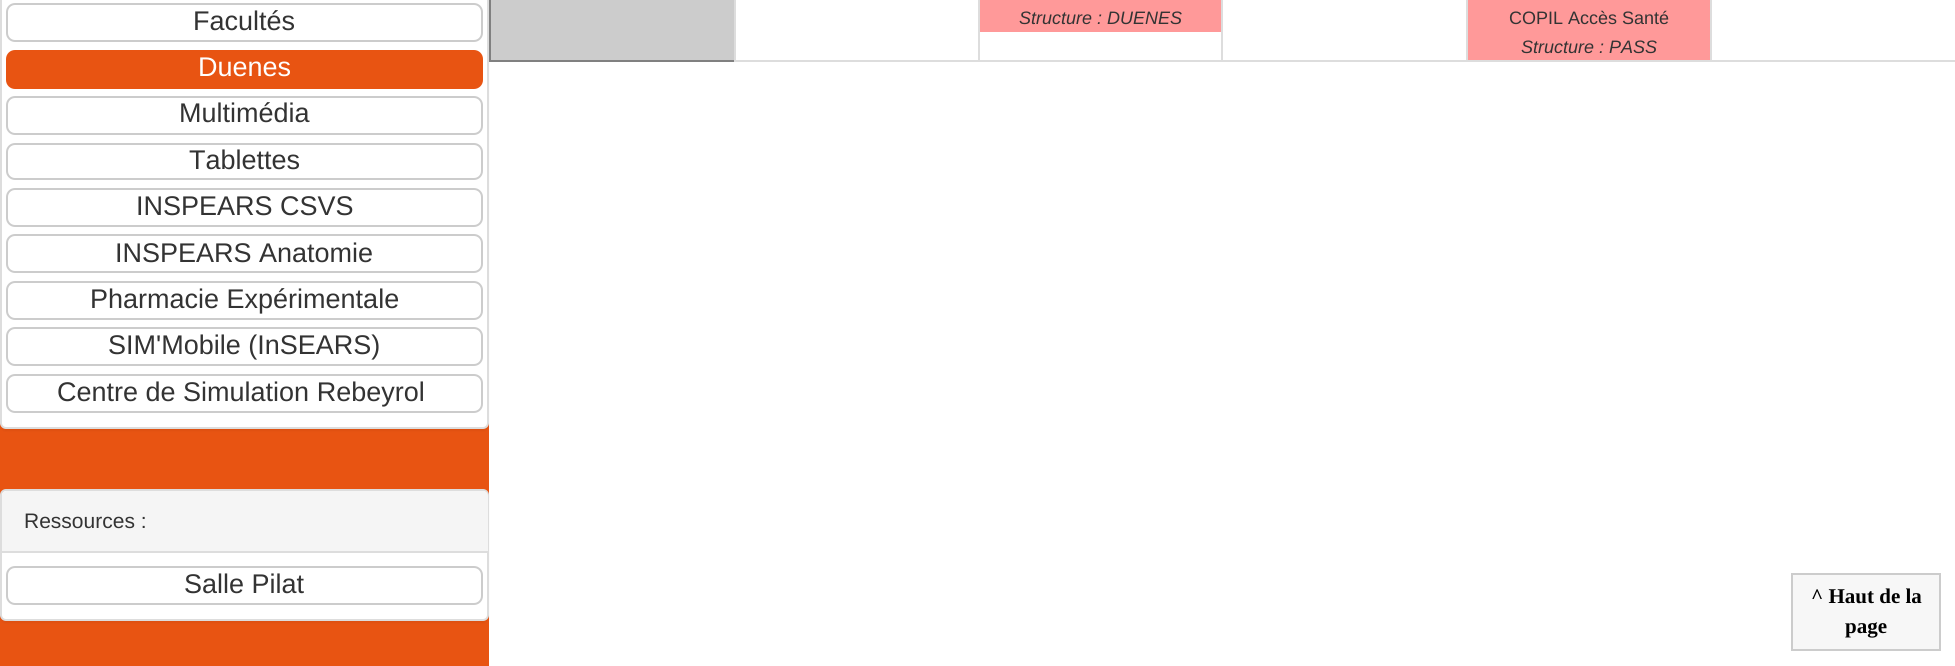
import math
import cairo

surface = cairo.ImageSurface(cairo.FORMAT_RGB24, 1955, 666)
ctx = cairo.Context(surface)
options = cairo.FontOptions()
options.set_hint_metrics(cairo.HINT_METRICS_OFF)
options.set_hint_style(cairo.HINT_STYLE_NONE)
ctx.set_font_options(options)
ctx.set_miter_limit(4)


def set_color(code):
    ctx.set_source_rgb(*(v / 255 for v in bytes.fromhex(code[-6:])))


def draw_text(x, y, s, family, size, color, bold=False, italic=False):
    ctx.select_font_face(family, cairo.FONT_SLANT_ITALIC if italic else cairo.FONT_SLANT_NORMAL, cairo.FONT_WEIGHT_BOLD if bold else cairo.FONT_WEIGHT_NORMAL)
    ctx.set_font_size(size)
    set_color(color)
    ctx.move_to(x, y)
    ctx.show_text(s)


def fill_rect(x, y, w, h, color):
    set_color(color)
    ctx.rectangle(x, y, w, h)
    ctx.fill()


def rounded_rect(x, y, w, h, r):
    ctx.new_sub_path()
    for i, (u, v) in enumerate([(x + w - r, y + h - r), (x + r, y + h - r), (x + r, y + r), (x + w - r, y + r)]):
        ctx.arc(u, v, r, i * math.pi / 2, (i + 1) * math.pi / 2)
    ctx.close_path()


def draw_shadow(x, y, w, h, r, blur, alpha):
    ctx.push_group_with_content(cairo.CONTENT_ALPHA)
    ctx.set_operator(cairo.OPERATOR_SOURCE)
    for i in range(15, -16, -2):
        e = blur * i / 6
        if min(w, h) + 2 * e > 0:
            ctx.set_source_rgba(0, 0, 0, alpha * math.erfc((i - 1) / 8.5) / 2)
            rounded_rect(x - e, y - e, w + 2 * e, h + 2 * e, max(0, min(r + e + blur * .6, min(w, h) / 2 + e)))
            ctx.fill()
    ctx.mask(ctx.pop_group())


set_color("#ffffff")
ctx.paint()
fill_rect(0, 423, 489, 243, "#e85412")
set_color("#000000")
draw_shadow(0, -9, 489, 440, 6, 1, 0.05)
set_color("#ffffff")
rounded_rect(1, -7, 487, 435, 5)
ctx.fill_preserve()
set_color("#dddddd")
ctx.stroke()
rounded_rect(7, 4, 475, 37, 8)
set_color("#cccccc")
ctx.stroke()
draw_text(193, 30, "Facultés", "Liberation Sans", 27, "#333333")
set_color("#e85412")
rounded_rect(7, 51, 475, 37, 8)
ctx.fill_preserve()
ctx.stroke()
draw_text(198, 76, "Duenes", "Liberation Sans", 27, "#ffffff")
rounded_rect(7, 97, 475, 37, 8)
set_color("#cccccc")
ctx.stroke()
draw_text(179, 122, "Multimédia", "Liberation Sans", 27, "#333333")
rounded_rect(7, 144, 475, 35, 8)
set_color("#cccccc")
ctx.stroke()
draw_text(189, 169, "Tablettes", "Liberation Sans", 27, "#333333")
rounded_rect(7, 189, 475, 37, 8)
set_color("#cccccc")
ctx.stroke()
draw_text(136, 215, "INSPEARS CSVS", "Liberation Sans", 27, "#333333")
rounded_rect(7, 235, 475, 37, 8)
set_color("#cccccc")
ctx.stroke()
draw_text(115, 262, "INSPEARS Anatomie", "Liberation Sans", 27, "#333333")
rounded_rect(7, 282, 475, 37, 8)
set_color("#cccccc")
ctx.stroke()
draw_text(90, 308, "Pharmacie Expérimentale", "Liberation Sans", 27, "#333333")
rounded_rect(7, 328, 475, 37, 8)
set_color("#cccccc")
ctx.stroke()
draw_text(108, 354, "SIM'Mobile (InSEARS)", "Liberation Sans", 27, "#333333")
rounded_rect(7, 375, 475, 37, 8)
set_color("#cccccc")
ctx.stroke()
draw_text(57, 401, "Centre de Simulation Rebeyrol", "Liberation Sans", 27, "#333333")
set_color("#000000")
draw_shadow(0, 491, 489, 132, 6, 1, 0.05)
set_color("#ffffff")
rounded_rect(1, 490, 487, 130, 5)
ctx.fill_preserve()
set_color("#dddddd")
ctx.stroke()
set_color("#f5f5f5")
ctx.new_path()
ctx.move_to(7, 491)
ctx.line_to(483, 491)
ctx.curve_to(486, 491, 488, 493, 488, 496)
ctx.line_to(488, 552)
ctx.line_to(2, 552)
ctx.line_to(2, 496)
ctx.curve_to(2, 493, 4, 491, 7, 491)
ctx.close_path()
ctx.fill()
fill_rect(2, 551, 486, 2, "#dddddd")
draw_text(24, 528, "Ressources :", "Liberation Sans", 21, "#333333")
rounded_rect(7, 567, 475, 37, 8)
set_color("#cccccc")
ctx.stroke()
draw_text(184, 593, "Salle Pilat", "Liberation Sans", 27, "#333333")
fill_rect(489, 60, 245, 2, "#808080")
fill_rect(489, 0, 2, 62, "#808080")
fill_rect(491, 0, 243, 60, "#cccccc")
fill_rect(1710, 60, 245, 2, "#dddddd")
fill_rect(1710, 0, 2, 62, "#dddddd")
fill_rect(1466, 60, 246, 2, "#dddddd")
fill_rect(1466, 0, 2, 62, "#dddddd")
fill_rect(1221, 60, 246, 2, "#dddddd")
fill_rect(1221, 0, 2, 62, "#dddddd")
fill_rect(978, 60, 245, 2, "#dddddd")
fill_rect(978, 0, 2, 62, "#dddddd")
fill_rect(734, 60, 246, 2, "#dddddd")
fill_rect(734, 0, 2, 62, "#dddddd")
fill_rect(980, 0, 241, 32, "#ff9999")
draw_text(1019, 24, "Structure : DUENES", "Liberation Sans", 18, "#333333", italic=True)
fill_rect(1468, 0, 242, 60, "#ff9999")
draw_text(1509, 24, "COPIL Accès Santé", "Liberation Sans", 18, "#333333")
draw_text(1521, 53, "Structure : PASS", "Liberation Sans", 18, "#333333", italic=True)
set_color("#f7f7f7")
ctx.rectangle(1792, 574, 148, 76)
ctx.fill_preserve()
set_color("#cccccc")
ctx.stroke()
draw_text(1811, 603, "^ Haut de la", "Liberation Serif", 21, "#000000", bold=True)
draw_text(1845, 633, "page", "Liberation Serif", 21, "#000000", bold=True)
surface.write_to_png("output.png")
